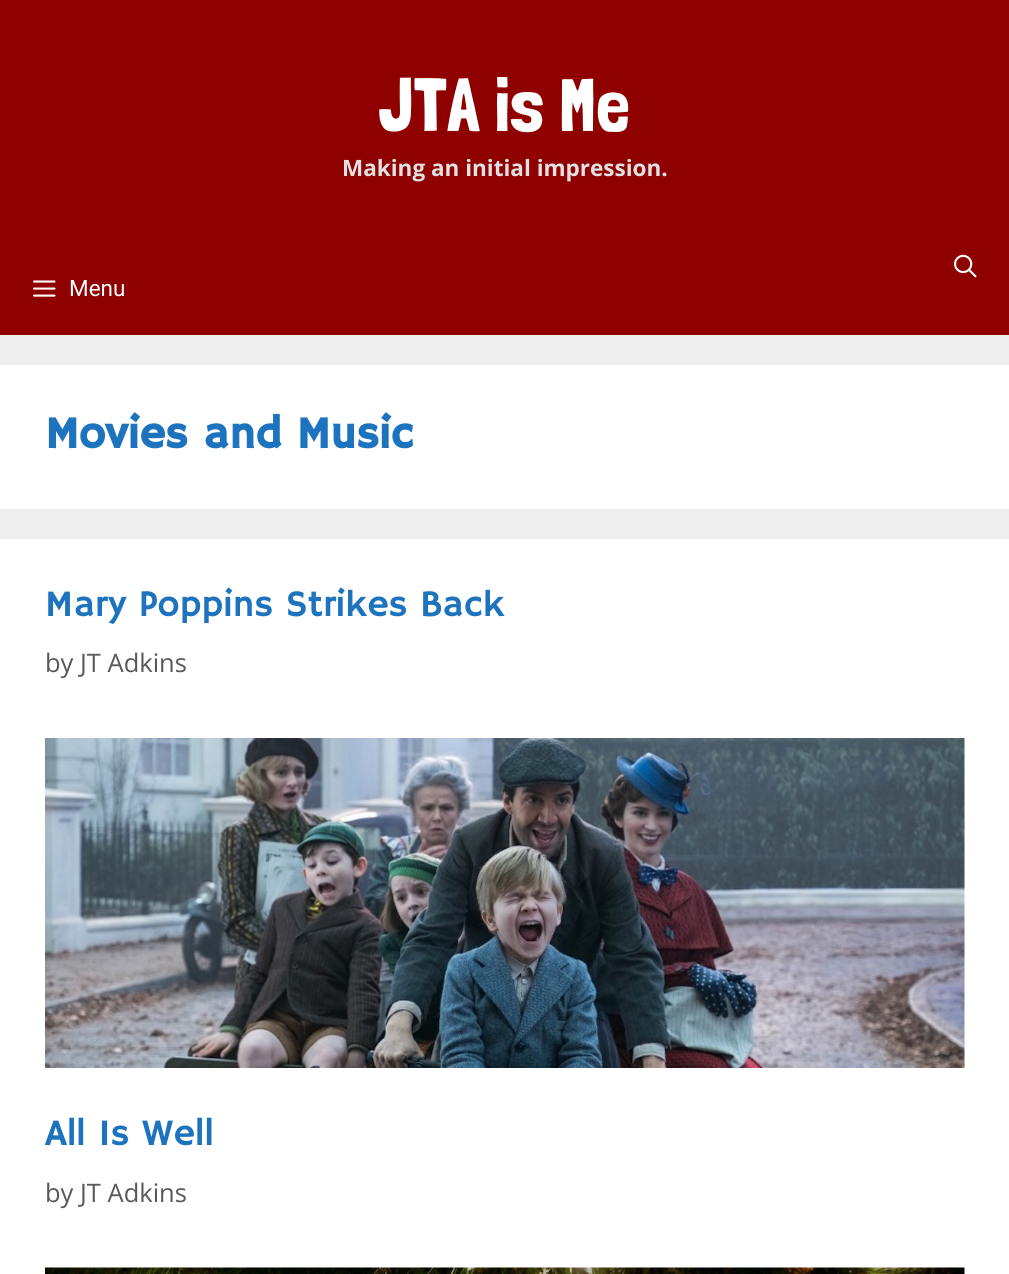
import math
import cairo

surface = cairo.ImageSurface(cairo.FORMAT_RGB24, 1009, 1274)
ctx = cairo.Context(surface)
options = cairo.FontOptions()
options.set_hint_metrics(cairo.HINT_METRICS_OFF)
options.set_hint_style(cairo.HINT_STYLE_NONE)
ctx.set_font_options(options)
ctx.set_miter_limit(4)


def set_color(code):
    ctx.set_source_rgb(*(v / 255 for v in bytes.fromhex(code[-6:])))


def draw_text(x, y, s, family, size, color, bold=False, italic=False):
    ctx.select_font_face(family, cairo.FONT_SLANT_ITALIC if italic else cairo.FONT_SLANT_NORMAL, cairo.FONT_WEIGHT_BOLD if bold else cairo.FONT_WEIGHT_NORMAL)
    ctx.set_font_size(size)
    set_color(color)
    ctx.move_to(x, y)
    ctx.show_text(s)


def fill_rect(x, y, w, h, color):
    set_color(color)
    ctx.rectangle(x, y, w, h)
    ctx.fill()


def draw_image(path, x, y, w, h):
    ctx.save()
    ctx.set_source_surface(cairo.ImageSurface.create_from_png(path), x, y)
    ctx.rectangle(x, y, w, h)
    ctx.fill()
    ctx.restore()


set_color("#efefef")
ctx.paint()
fill_rect(0, 0, 1009, 335, "#8f0000")
draw_text(379, 131, "JTA is Me", "Londrina Solid", 75, "#ffffff")
draw_text(342, 176, "Making an initial impression.", "Open Sans", 22.5, "#e2e2e2", bold=True)
draw_image("assets/img1.png", 954, 254, 23, 24)
draw_image("assets/img2.png", 33, 280, 23, 17)
draw_text(69, 296, "Menu", "Roboto", 22.5, "#ffffff")
fill_rect(0, 365, 1009, 144, "#ffffff")
draw_text(45, 448, "Movies and Music", "Hammersmith One", 45, "#1e73be", bold=True)
fill_rect(0, 539, 1009, 735, "#ffffff")
draw_text(45, 616, "Mary Poppins Strikes Back", "Hammersmith One", 37.5, "#1e73be")
draw_text(45, 672, "by JT Adkins", "Open Sans", 25.5, "#595959")
draw_image("assets/img3.png", 45, 738, 920, 330)
draw_text(45, 1145, "All Is Well", "Hammersmith One", 37.5, "#1e73be")
draw_text(45, 1202, "by JT Adkins", "Open Sans", 25.5, "#595959")
draw_image("assets/img4.png", 45, 1267, 920, 7)
surface.write_to_png("output.png")
